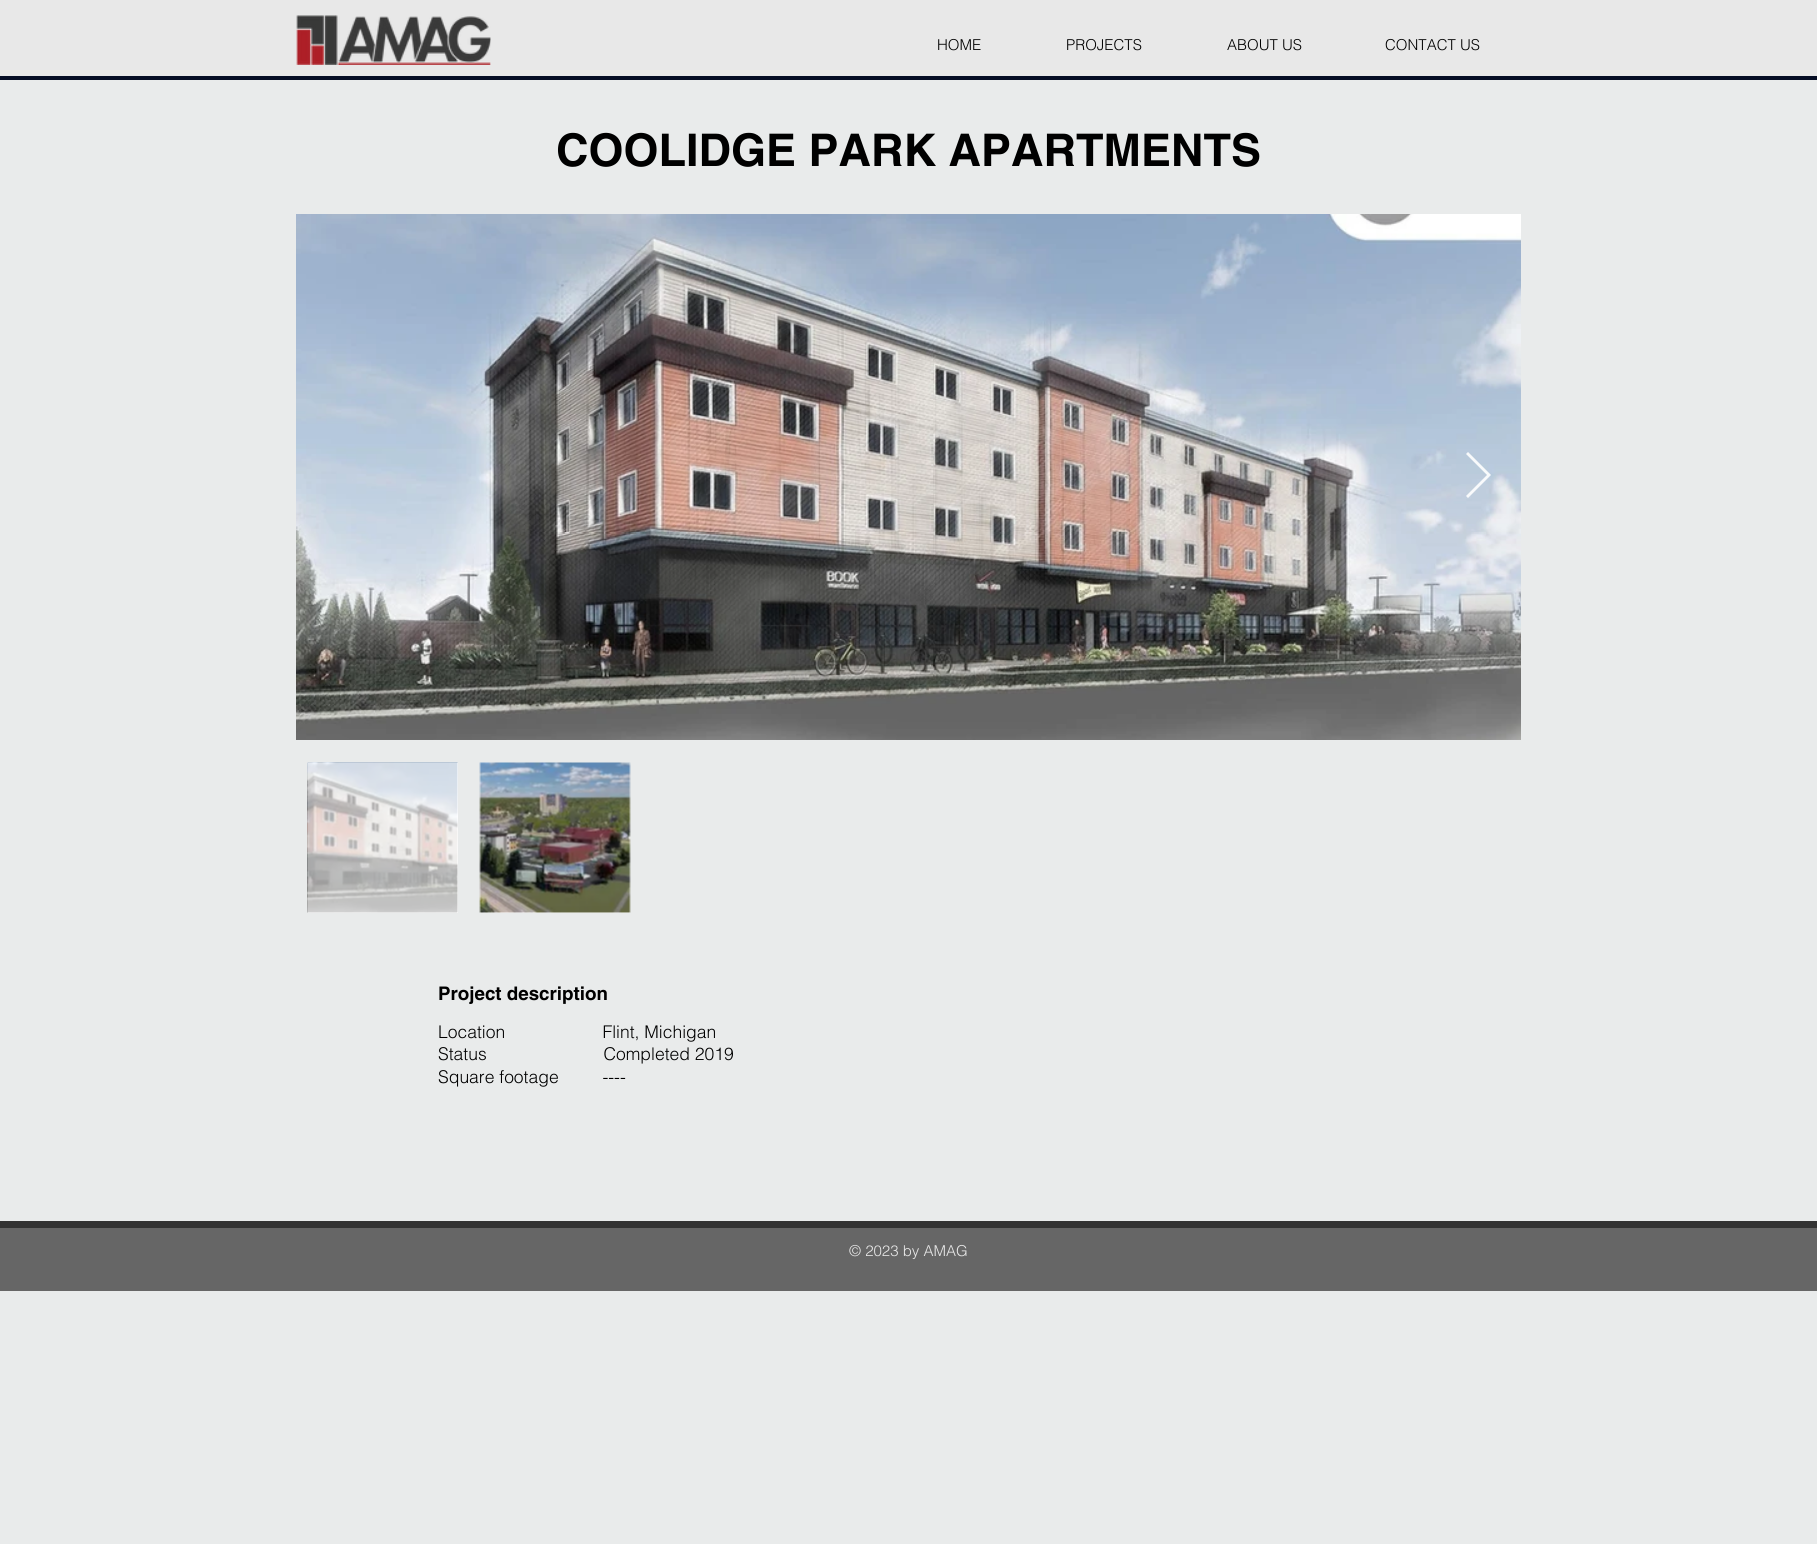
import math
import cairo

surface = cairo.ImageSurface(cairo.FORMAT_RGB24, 1817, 1544)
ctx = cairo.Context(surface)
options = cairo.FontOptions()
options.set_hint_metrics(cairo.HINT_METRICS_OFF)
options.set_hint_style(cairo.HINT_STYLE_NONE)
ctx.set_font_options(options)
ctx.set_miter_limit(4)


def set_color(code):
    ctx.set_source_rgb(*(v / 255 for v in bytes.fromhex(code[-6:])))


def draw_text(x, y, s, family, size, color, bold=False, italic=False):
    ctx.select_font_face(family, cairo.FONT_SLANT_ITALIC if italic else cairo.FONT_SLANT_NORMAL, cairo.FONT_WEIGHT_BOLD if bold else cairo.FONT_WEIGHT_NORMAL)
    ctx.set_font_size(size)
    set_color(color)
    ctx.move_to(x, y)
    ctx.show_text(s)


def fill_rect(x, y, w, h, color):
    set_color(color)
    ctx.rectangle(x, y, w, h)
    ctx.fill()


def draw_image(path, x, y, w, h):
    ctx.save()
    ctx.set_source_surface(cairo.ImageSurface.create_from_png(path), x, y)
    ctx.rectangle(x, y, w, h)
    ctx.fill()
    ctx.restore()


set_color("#e9ebeb")
ctx.paint()
fill_rect(0, 0, 1817, 76, "#e8e8e8")
fill_rect(0, 76, 1817, 4, "#060e25")
draw_image("assets/img1.png", 296, 15, 195, 50)
draw_text(937, 50, "HOME", "helvetica Light", 15, "#000000")
draw_text(1066, 50, "PROJECTS", "helvetica Light", 15, "#000000")
draw_text(1227, 50, "ABOUT US", "helvetica Light", 15, "#000000")
draw_text(1385, 50, "CONTACT US", "helvetica Light", 15, "#000000")
draw_text(556, 166, "COOLIDGE PARK APARTMENTS", "helvetica", 45, "#000000", bold=True)
draw_image("assets/img2.png", 296, 214, 1225, 526)
ctx.set_source_rgba(1, 1, 1, 0.9)
ctx.new_path()
ctx.move_to(1466, 454)
ctx.line_to(1468, 452)
ctx.line_to(1491, 475)
ctx.line_to(1468, 498)
ctx.line_to(1466, 496)
ctx.line_to(1487, 475)
ctx.close_path()
ctx.fill()
fill_rect(308, 763, 150, 150, "#ffffff")
draw_image("assets/img3.png", 307, 762, 151, 151)
fill_rect(480, 763, 150, 150, "#ffffff")
draw_image("assets/img4.png", 479, 762, 152, 151)
draw_text(438, 1000, "Project description", "helvetica", 18.75, "#000000", bold=True)
draw_text(438, 1038, "Location                    Flint, Michigan", "helvetica Light", 17.5, "#000000")
draw_text(438, 1060, "Status                        Completed 2019", "helvetica Light", 17.5, "#000000")
draw_text(438, 1083, "Square footage         ----", "helvetica Light", 17.5, "#000000")
fill_rect(0, 1228, 1817, 63, "#666666")
fill_rect(0, 1221, 1817, 7, "#333333")
draw_text(849, 1256, "© 2023 by AMAG", "helvetica Light", 15, "#e8e8e8")
surface.write_to_png("output.png")
